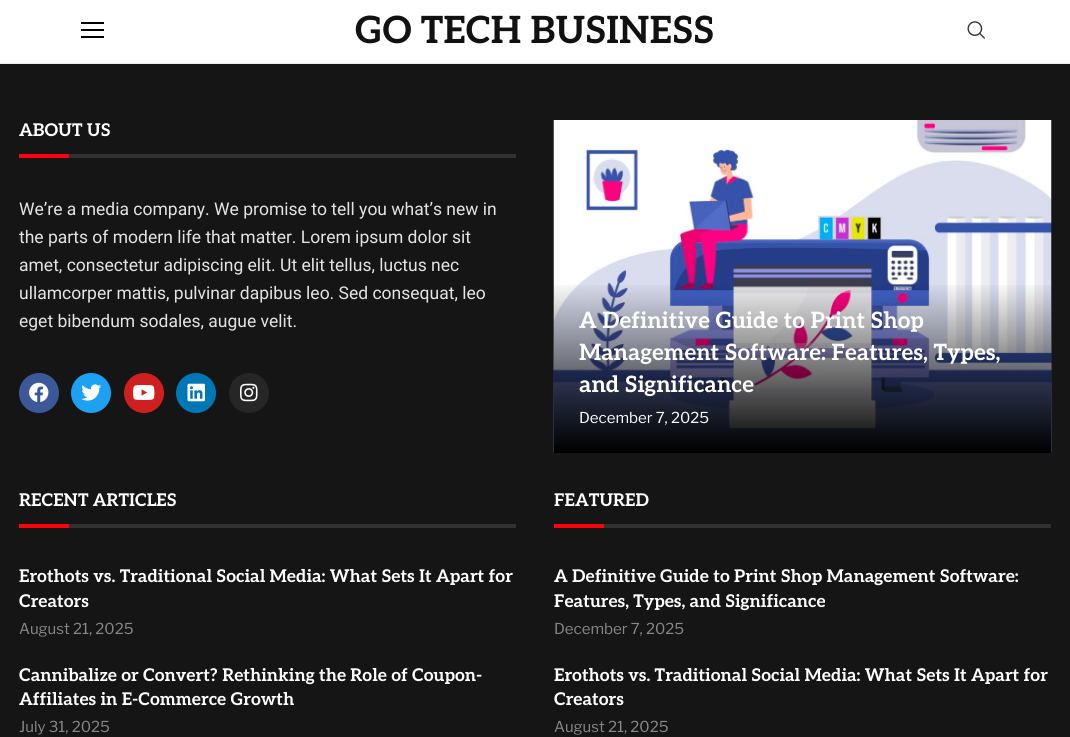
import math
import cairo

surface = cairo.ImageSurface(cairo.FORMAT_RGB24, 1070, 737)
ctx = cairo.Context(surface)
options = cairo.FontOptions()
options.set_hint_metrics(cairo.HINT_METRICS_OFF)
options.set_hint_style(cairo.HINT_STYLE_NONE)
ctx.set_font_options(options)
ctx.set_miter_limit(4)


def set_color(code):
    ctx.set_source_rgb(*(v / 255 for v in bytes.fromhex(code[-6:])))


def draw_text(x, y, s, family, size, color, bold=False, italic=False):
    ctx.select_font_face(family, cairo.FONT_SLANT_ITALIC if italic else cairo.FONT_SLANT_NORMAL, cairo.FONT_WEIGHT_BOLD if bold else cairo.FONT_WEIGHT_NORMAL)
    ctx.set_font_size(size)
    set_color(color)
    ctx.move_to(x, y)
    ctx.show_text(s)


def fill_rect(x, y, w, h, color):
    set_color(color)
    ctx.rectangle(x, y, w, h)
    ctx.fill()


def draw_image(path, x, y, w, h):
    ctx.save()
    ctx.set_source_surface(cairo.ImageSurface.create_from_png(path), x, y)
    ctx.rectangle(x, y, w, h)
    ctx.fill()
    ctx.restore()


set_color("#ffffff")
ctx.paint()
fill_rect(0, 63, 1070, 1, "#ececec")
fill_rect(81, 22, 23, 2, "#000000")
fill_rect(81, 29, 23, 2, "#000000")
fill_rect(81, 36, 23, 2, "#000000")
draw_text(355, 43, "GO TECH BUSINESS", "Aleo", 37.5, "#111111", bold=True)
draw_image("assets/img1.png", 967, 21, 18, 18)
fill_rect(0, 64, 1070, 673, "#151515")
fill_rect(69, 154, 447, 4, "#313131")
draw_text(19, 136, "ABOUT US", "Aleo", 17.5, "#ffffff", bold=True)
fill_rect(19, 154, 50, 4, "#ff000d")
draw_text(19, 215, "We’re a media company. We promise to tell you what’s new in", "Roboto", 17.5, "#e4e4e4")
draw_text(19, 243, "the parts of modern life that matter. Lorem ipsum dolor sit", "Roboto", 17.5, "#e4e4e4")
draw_text(19, 271, "amet, consectetur adipiscing elit. Ut elit tellus, luctus nec", "Roboto", 17.5, "#e4e4e4")
draw_text(19, 299, "ullamcorper mattis, pulvinar dapibus leo. Sed consequat, leo", "Roboto", 17.5, "#e4e4e4")
draw_text(19, 327, "eget bibendum sodales, augue velit.", "Roboto", 17.5, "#e4e4e4")
set_color("#3b5998")
ctx.new_path()
ctx.arc(39, 393, 20, 0, 2 * math.pi)
ctx.fill()
draw_image("assets/img2.png", 29, 382, 20, 20)
set_color("#1da1f2")
ctx.arc(91, 393, 20, 0, 2 * math.pi)
ctx.fill()
draw_image("assets/img3.png", 81, 384, 21, 17)
set_color("#cd201f")
ctx.arc(144, 393, 20, 0, 2 * math.pi)
ctx.fill()
draw_image("assets/img4.png", 133, 385, 22, 15)
set_color("#0077b5")
ctx.arc(196, 393, 20, 0, 2 * math.pi)
ctx.fill()
draw_image("assets/img5.png", 187, 383, 18, 19)
set_color("#262626")
ctx.arc(249, 393, 20, 0, 2 * math.pi)
ctx.fill()
draw_image("assets/img6.png", 240, 383, 18, 19)
draw_image("assets/img7.png", 553, 120, 499, 333)
gradient = cairo.LinearGradient(803, 281, 803, 453)
gradient.add_color_stop_rgba(0, 0, 0, 0, 0)
gradient.add_color_stop_rgba(1, 0, 0, 0, 1)
ctx.set_source(gradient)
ctx.rectangle(554, 285, 497, 168)
ctx.fill()
draw_text(579, 328, "A Definitive Guide to Print Shop", "Aleo", 22.5, "#ffffff", bold=True)
draw_text(579, 360, "Management Software: Features, Types,", "Aleo", 22.5, "#ffffff", bold=True)
draw_text(579, 392, "and Significance", "Aleo", 22.5, "#ffffff", bold=True)
draw_text(579, 423, "December 7, 2025", "Libre Franklin", 15, "#ffffff")
fill_rect(69, 524, 447, 4, "#313131")
draw_text(19, 506, "RECENT ARTICLES", "Aleo", 17.5, "#ffffff", bold=True)
fill_rect(19, 524, 50, 4, "#ff000d")
draw_text(19, 582, "Erothots vs. Traditional Social Media: What Sets It Apart for", "Aleo", 17.5, "#ffffff", bold=True)
draw_text(19, 607, "Creators", "Aleo", 17.5, "#ffffff", bold=True)
draw_text(19, 634, "August 21, 2025", "Libre Franklin", 15, "#888888")
draw_text(19, 681, "Cannibalize or Convert? Rethinking the Role of Coupon-", "Aleo", 17.5, "#ffffff", bold=True)
draw_text(19, 705, "Affiliates in E-Commerce Growth", "Aleo", 17.5, "#ffffff", bold=True)
draw_text(19, 732, "July 31, 2025", "Libre Franklin", 15, "#888888")
fill_rect(604, 524, 447, 4, "#313131")
draw_text(554, 506, "FEATURED", "Aleo", 17.5, "#ffffff", bold=True)
fill_rect(554, 524, 50, 4, "#ff000d")
draw_text(554, 582, "A Definitive Guide to Print Shop Management Software:", "Aleo", 17.5, "#ffffff", bold=True)
draw_text(554, 607, "Features, Types, and Significance", "Aleo", 17.5, "#ffffff", bold=True)
draw_text(554, 634, "December 7, 2025", "Libre Franklin", 15, "#888888")
draw_text(554, 681, "Erothots vs. Traditional Social Media: What Sets It Apart for", "Aleo", 17.5, "#ffffff", bold=True)
draw_text(554, 705, "Creators", "Aleo", 17.5, "#ffffff", bold=True)
draw_text(554, 732, "August 21, 2025", "Libre Franklin", 15, "#888888")
surface.write_to_png("output.png")
